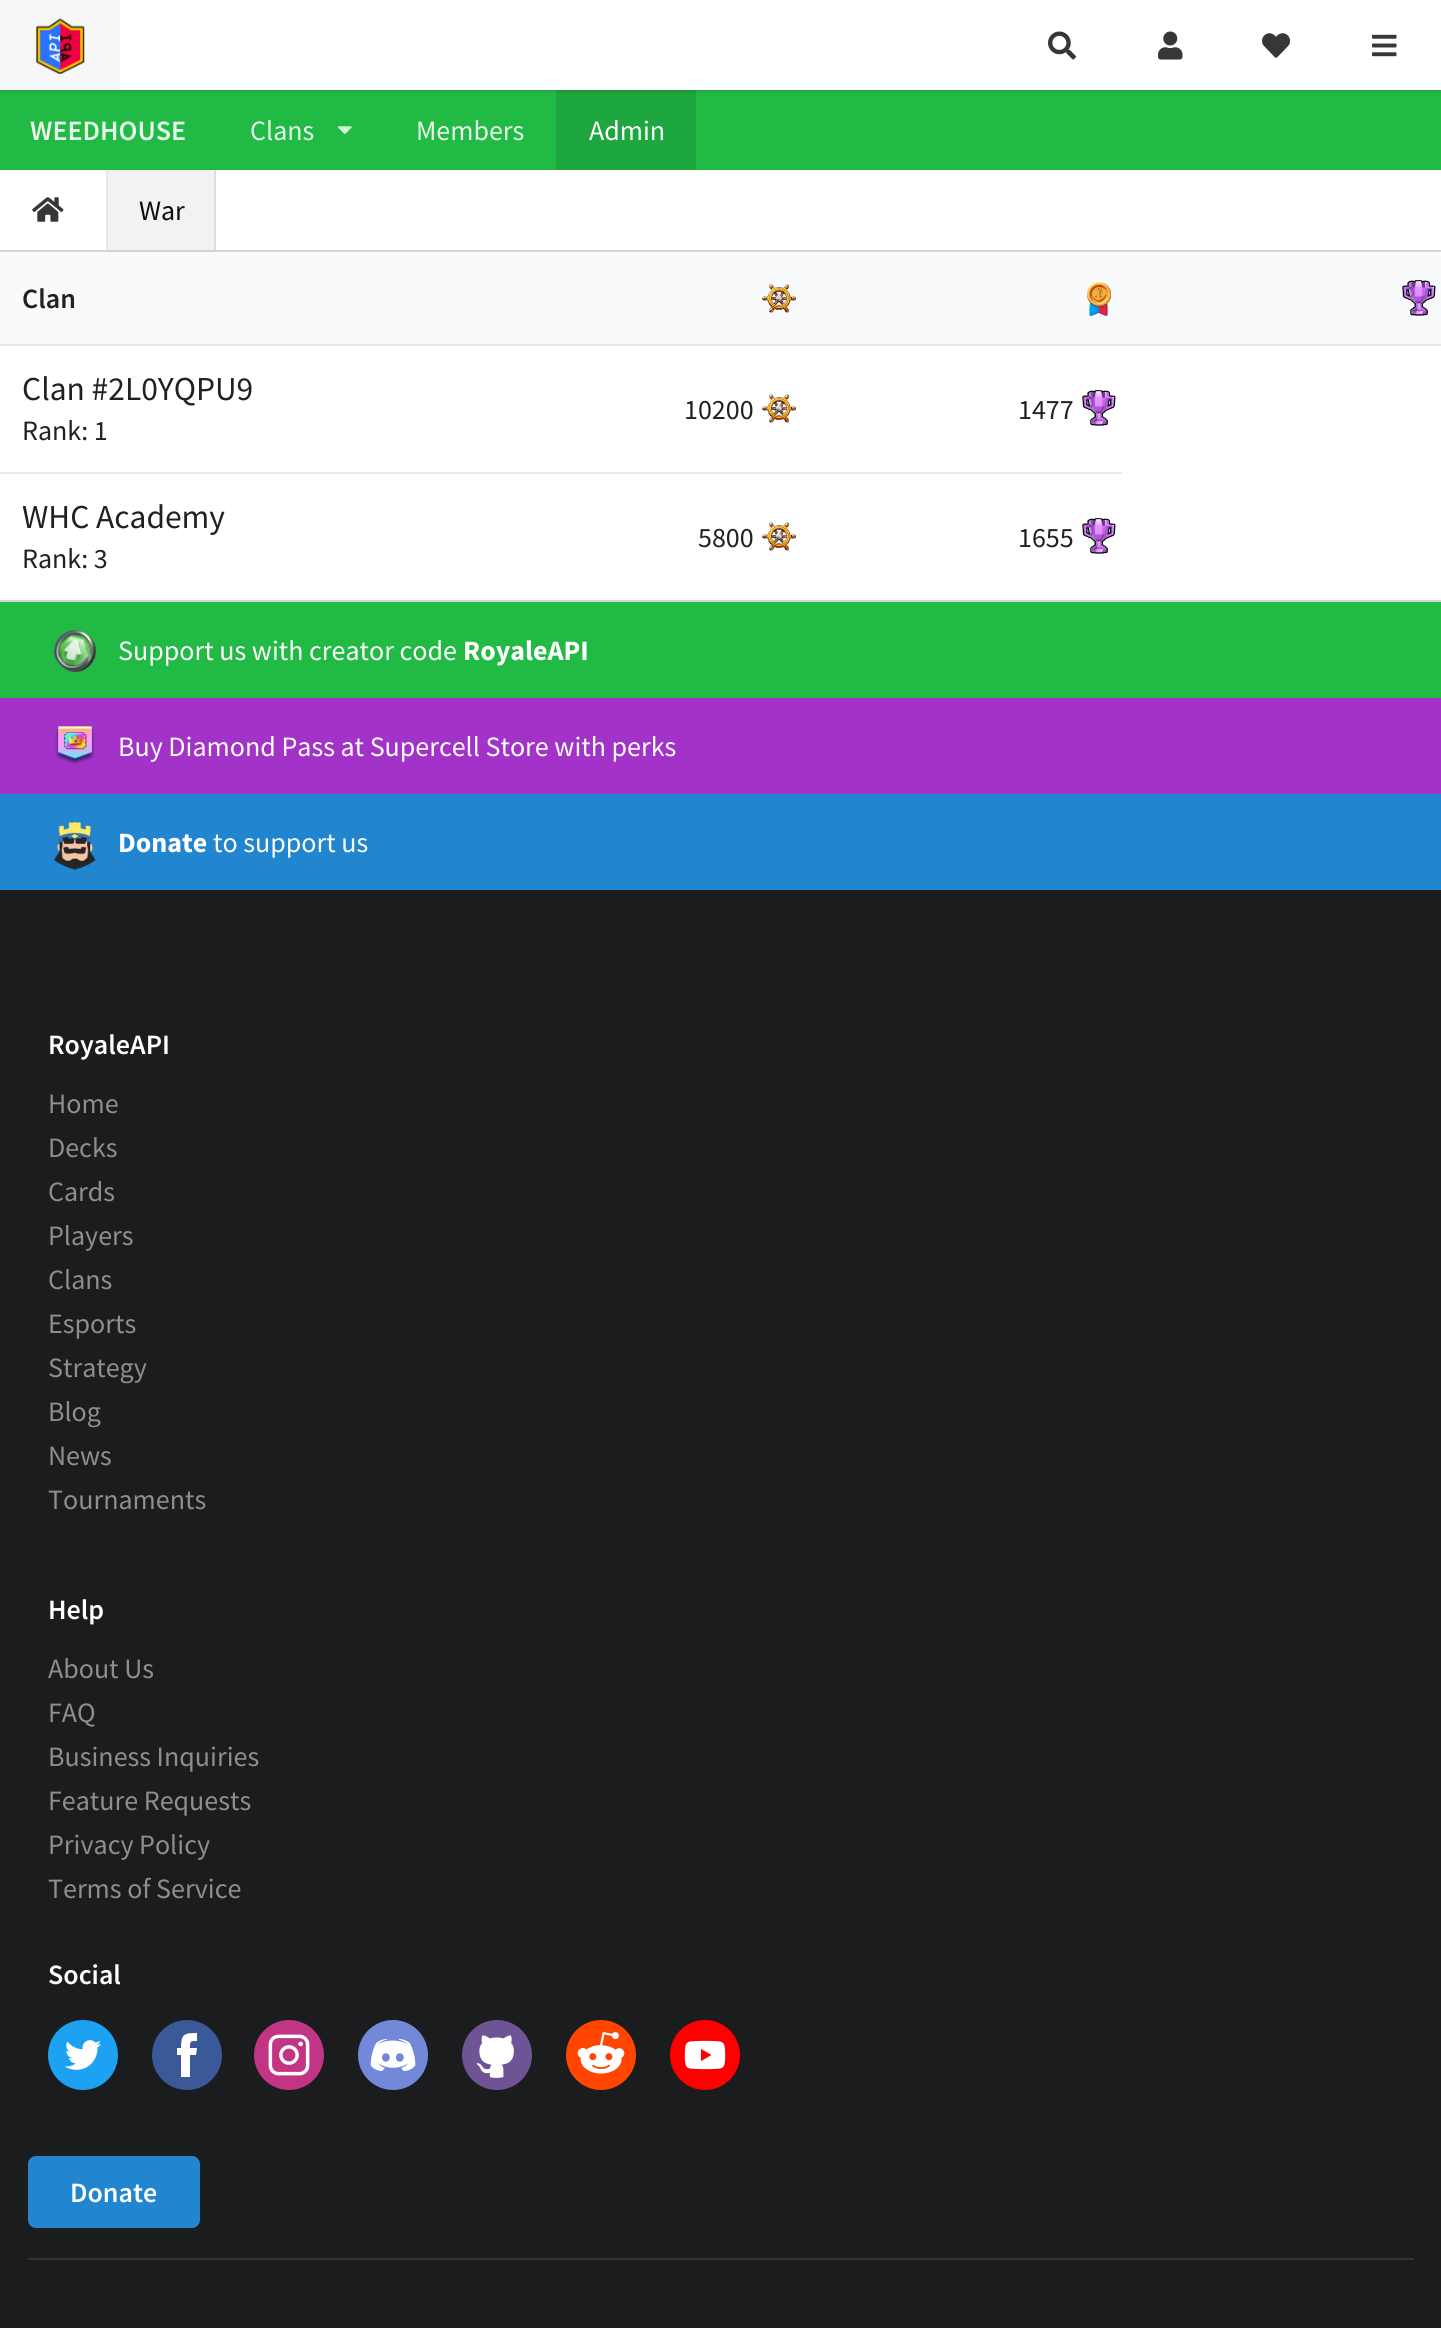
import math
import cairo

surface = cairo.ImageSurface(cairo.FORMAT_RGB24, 1441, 2328)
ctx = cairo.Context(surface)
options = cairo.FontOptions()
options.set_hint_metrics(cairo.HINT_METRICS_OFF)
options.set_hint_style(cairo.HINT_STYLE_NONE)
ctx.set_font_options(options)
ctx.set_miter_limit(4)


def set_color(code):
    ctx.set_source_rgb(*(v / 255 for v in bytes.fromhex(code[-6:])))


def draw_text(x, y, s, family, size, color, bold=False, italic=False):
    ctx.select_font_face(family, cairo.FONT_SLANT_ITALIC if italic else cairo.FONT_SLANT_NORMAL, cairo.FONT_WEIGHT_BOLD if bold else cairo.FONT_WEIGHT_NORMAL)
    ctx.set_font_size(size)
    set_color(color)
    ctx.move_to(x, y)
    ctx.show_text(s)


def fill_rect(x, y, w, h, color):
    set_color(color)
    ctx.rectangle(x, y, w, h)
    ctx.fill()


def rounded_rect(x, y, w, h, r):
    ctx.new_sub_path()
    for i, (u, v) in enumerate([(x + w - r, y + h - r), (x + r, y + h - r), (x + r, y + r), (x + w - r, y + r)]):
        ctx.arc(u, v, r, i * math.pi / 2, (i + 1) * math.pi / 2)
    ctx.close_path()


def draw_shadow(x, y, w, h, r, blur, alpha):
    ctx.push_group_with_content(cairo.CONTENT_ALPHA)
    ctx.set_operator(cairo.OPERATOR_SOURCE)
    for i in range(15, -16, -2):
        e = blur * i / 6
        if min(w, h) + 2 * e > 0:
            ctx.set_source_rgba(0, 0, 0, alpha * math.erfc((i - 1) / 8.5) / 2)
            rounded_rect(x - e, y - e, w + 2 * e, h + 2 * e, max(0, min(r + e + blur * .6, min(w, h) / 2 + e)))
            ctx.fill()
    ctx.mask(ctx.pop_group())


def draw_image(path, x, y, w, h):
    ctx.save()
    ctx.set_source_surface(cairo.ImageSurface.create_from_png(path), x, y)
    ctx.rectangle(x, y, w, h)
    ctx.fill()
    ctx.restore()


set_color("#21ba45")
ctx.paint()
fill_rect(556, 90, 140, 80, "#1ea73e")
set_color("#222426")
draw_shadow(0, 2, 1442, 90, 0, 2, 0.15)
fill_rect(120, 0, 1321, 90, "#ffffff")
fill_rect(0, 0, 120, 90, "#f7f7f7")
draw_image("assets/img1.png", 36, 18, 49, 56)
draw_image("assets/img2.png", 1048, 31, 28, 29)
draw_image("assets/img3.png", 1158, 31, 25, 29)
draw_image("assets/img4.png", 1262, 33, 29, 25)
draw_image("assets/img5.png", 1372, 34, 25, 23)
draw_text(30, 140, "WEEDHOUSE", "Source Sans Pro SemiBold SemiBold", 28, "#e9f8ec")
draw_text(250, 140, "Clans", "Source Sans Pro", 28, "#e9f8ec")
draw_image("assets/img6.png", 338, 126, 14, 8)
draw_text(416, 140, "Members", "Source Sans Pro", 28, "#e9f8ec")
draw_text(589, 140, "Admin", "Source Sans Pro", 28, "#ffffff")
fill_rect(0, 170, 1441, 80, "#ffffff")
fill_rect(0, 250, 1441, 2, "#d4d4d5")
draw_image("assets/img7.png", 32, 197, 32, 25)
fill_rect(106, 170, 2, 80, "#e9e9e9")
fill_rect(108, 170, 106, 80, "#f2f2f2")
draw_text(139, 220, "War", "Source Sans Pro", 28, "#0c0c0c")
fill_rect(214, 170, 2, 80, "#ddddde")
fill_rect(0, 252, 1441, 348, "#ffffff")
fill_rect(0, 600, 1441, 2, "#d4d4d5")
fill_rect(0, 252, 1122, 92, "#f9fafb")
fill_rect(0, 344, 1122, 2, "#e3e5e6")
draw_text(22, 308, "Clan", "Source Sans Pro SemiBold SemiBold", 28, "#202121")
draw_image("assets/img8.png", 762, 284, 34, 29)
draw_image("assets/img9.png", 1087, 282, 25, 34)
set_color("#f9fafb")
ctx.new_path()
ctx.move_to(1122, 252)
ctx.line_to(1434, 252)
ctx.curve_to(1438.5, 252, 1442, 255.5, 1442, 260)
ctx.line_to(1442, 346)
ctx.line_to(1122, 346)
ctx.close_path()
ctx.fill()
draw_image("assets/img10.png", 1402, 280, 34, 36)
fill_rect(1122, 344, 319, 2, "#e3e5e6")
draw_text(22, 400, "Clan #2L0YQPU9", "Source Sans Pro", 33.5, "#202121")
draw_text(22, 440, "Rank: 1", "Source Sans Pro", 28, "#202121")
draw_image("assets/img11.png", 762, 394, 34, 29)
draw_text(684, 419, "10200", "Source Sans Pro", 28, "#202121")
draw_image("assets/img12.png", 1082, 390, 34, 36)
draw_text(1018, 419, "1477", "Source Sans Pro", 28, "#202121")
draw_text(22, 528, "WHC Academy", "Source Sans Pro", 33.5, "#202121")
draw_text(22, 568, "Rank: 3", "Source Sans Pro", 28, "#202121")
draw_image("assets/img13.png", 762, 522, 34, 29)
fill_rect(0, 472, 1122, 2, "#e9e9e9")
draw_text(698, 547, "5800", "Source Sans Pro", 28, "#202121")
draw_image("assets/img12.png", 1082, 518, 34, 36)
draw_text(1018, 547, "1655", "Source Sans Pro", 28, "#202121")
draw_image("assets/img14.png", 54, 630, 42, 42)
draw_text(118, 660, "Support us with creator code", "Source Sans Pro", 28, "#ffffff")
draw_text(463, 660, "RoyaleAPI", "Source Sans Pro", 28, "#ffffff", bold=True)
fill_rect(0, 698, 1441, 96, "#a333c8")
draw_image("assets/img15.png", 55, 726, 40, 39)
draw_text(118, 756, "Buy Diamond Pass at Supercell Store with perks", "Source Sans Pro", 28, "#ffffff")
fill_rect(0, 794, 1441, 96, "#2185d0")
draw_image("assets/img16.png", 54, 822, 42, 48)
draw_text(118, 852, "Donate", "Source Sans Pro", 28, "#ffffff", bold=True)
draw_text(213, 852, "to support us", "Source Sans Pro", 28, "#ffffff")
fill_rect(0, 890, 1441, 1438, "#1b1c1d")
draw_text(48, 1054, "RoyaleAPI", "Source Sans Pro SemiBold SemiBold", 28, "#ffffff")
draw_text(48, 1113, "Home", "Source Sans Pro", 28, "#8d8e8e")
draw_text(48, 1157, "Decks", "Source Sans Pro", 28, "#8d8e8e")
draw_text(48, 1201, "Cards", "Source Sans Pro", 28, "#8d8e8e")
draw_text(48, 1245, "Players", "Source Sans Pro", 28, "#8d8e8e")
draw_text(48, 1289, "Clans", "Source Sans Pro", 28, "#8d8e8e")
draw_text(48, 1333, "Esports", "Source Sans Pro", 28, "#8d8e8e")
draw_text(48, 1377, "Strategy", "Source Sans Pro", 28, "#8d8e8e")
draw_text(48, 1421, "Blog", "Source Sans Pro", 28, "#8d8e8e")
draw_text(48, 1465, "News", "Source Sans Pro", 28, "#8d8e8e")
draw_text(48, 1509, "Tournaments", "Source Sans Pro", 28, "#8d8e8e")
draw_text(48, 1619, "Help", "Source Sans Pro SemiBold SemiBold", 28, "#ffffff")
draw_text(48, 1678, "About Us", "Source Sans Pro", 28, "#8d8e8e")
draw_text(48, 1722, "FAQ", "Source Sans Pro", 28, "#8d8e8e")
draw_text(48, 1766, "Business Inquiries", "Source Sans Pro", 28, "#8d8e8e")
draw_text(48, 1810, "Feature Requests", "Source Sans Pro", 28, "#8d8e8e")
draw_text(48, 1854, "Privacy Policy", "Source Sans Pro", 28, "#8d8e8e")
draw_text(48, 1898, "Terms of Service", "Source Sans Pro", 28, "#8d8e8e")
draw_text(48, 1984, "Social", "Source Sans Pro SemiBold SemiBold", 28, "#ffffff")
draw_image("assets/img17.png", 48, 2020, 70, 70)
set_color("#3b5998")
ctx.arc(187, 2055, 35, 0, 2 * math.pi)
ctx.fill()
draw_image("assets/img18.png", 254, 2020, 70, 70)
draw_image("assets/img19.png", 358, 2020, 70, 70)
draw_image("assets/img20.png", 462, 2020, 70, 70)
draw_image("assets/img21.png", 566, 2020, 70, 70)
draw_image("assets/img22.png", 670, 2020, 70, 70)
set_color("#ffffff")
ctx.new_path()
ctx.move_to(190, 2077)
ctx.line_to(181, 2077)
ctx.line_to(181, 2055)
ctx.line_to(177, 2055)
ctx.line_to(177, 2048)
ctx.line_to(181, 2048)
ctx.curve_to(181, 2034, 184, 2033, 197, 2033)
ctx.line_to(197, 2041)
ctx.curve_to(190, 2041, 190, 2041, 190, 2048)
ctx.line_to(197, 2048)
ctx.line_to(196, 2055)
ctx.line_to(190, 2055)
ctx.close_path()
ctx.fill()
set_color("#2185d0")
rounded_rect(28, 2156, 172, 72, 8)
ctx.fill()
draw_text(70, 2202, "Donate", "Source Sans Pro SemiBold SemiBold", 28, "#ffffff")
fill_rect(28, 2258, 1386, 2, "#323334")
surface.write_to_png("output.png")
